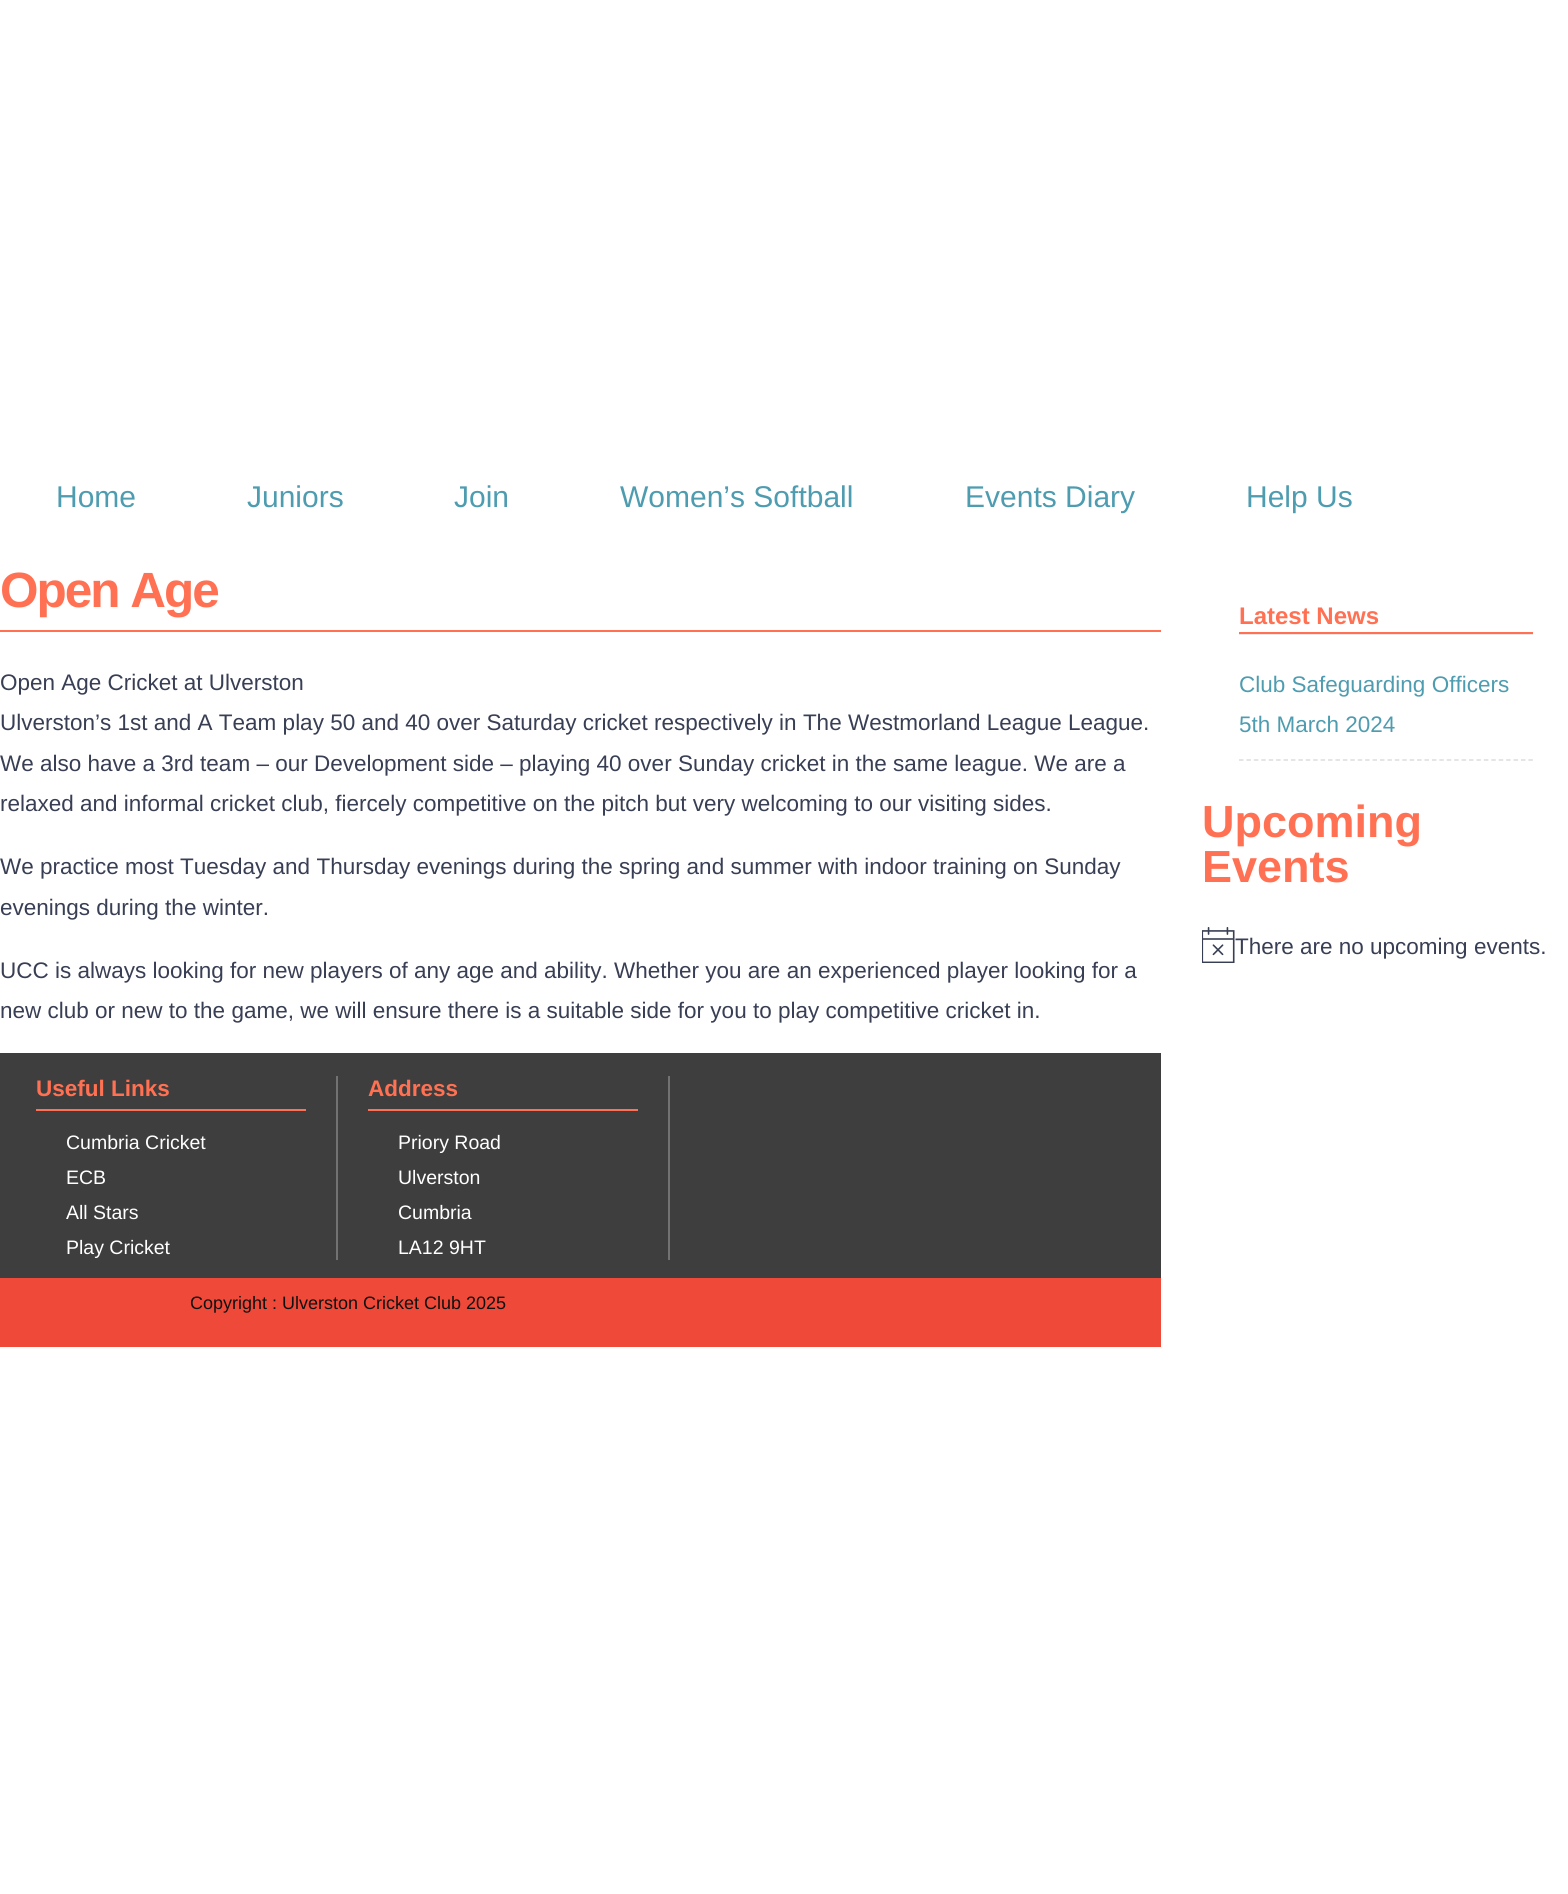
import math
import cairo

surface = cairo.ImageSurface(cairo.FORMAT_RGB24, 1568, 1894)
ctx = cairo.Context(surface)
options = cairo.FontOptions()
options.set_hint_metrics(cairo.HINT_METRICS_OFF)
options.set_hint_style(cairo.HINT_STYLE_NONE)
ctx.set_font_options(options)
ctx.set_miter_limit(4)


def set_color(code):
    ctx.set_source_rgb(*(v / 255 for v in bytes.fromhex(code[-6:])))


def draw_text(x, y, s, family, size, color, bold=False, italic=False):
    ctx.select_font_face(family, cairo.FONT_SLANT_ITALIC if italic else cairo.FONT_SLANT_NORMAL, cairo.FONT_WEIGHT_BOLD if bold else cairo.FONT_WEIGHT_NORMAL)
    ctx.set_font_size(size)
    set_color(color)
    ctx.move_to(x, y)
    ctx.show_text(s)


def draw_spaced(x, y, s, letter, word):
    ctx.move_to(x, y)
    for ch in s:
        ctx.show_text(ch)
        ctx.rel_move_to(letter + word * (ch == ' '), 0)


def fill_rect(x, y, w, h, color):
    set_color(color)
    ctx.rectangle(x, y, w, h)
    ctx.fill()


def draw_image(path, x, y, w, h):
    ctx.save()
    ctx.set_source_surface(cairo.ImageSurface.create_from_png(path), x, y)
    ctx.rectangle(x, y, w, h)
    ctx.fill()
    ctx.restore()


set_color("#ffffff")
ctx.paint()
draw_text(56, 507, "Home", "Liberation Sans", 30, "#4e9cb0")
draw_text(247, 507, "Juniors", "Liberation Sans", 30, "#4e9cb0")
draw_text(454, 507, "Join", "Liberation Sans", 30, "#4e9cb0")
draw_text(620, 507, "Women’s Softball", "Liberation Sans", 30, "#4e9cb0")
draw_text(965, 507, "Events Diary", "Liberation Sans", 30, "#4e9cb0")
draw_text(1246, 507, "Help Us", "Liberation Sans", 30, "#4e9cb0")
fill_rect(0, 630, 1161, 2, "#ff7152")
ctx.select_font_face("Liberation Sans", cairo.FONT_SLANT_NORMAL, cairo.FONT_WEIGHT_BOLD)
ctx.set_font_size(49.5)
draw_spaced(0, 607, "Open Age", -2, 0)
draw_text(0, 690, "Open Age Cricket at Ulverston", "Liberation Sans", 22.5, "#383e54")
draw_text(0, 730, "Ulverston’s 1st and A Team play 50 and 40 over Saturday cricket respectively in The Westmorland League League.", "Liberation Sans", 22.5, "#383e54")
draw_text(0, 771, "We also have a 3rd team – our Development side – playing 40 over Sunday cricket in the same league. We are a", "Liberation Sans", 22.5, "#383e54")
draw_text(0, 811, "relaxed and informal cricket club, fiercely competitive on the pitch but very welcoming to our visiting sides.", "Liberation Sans", 22.5, "#383e54")
draw_text(0, 874, "We practice most Tuesday and Thursday evenings during the spring and summer with indoor training on Sunday", "Liberation Sans", 22.5, "#383e54")
draw_text(0, 915, "evenings during the winter.", "Liberation Sans", 22.5, "#383e54")
draw_text(0, 978, "UCC is always looking for new players of any age and ability. Whether you are an experienced player looking for a", "Liberation Sans", 22.5, "#383e54")
draw_text(0, 1018, "new club or new to the game, we will ensure there is a suitable side for you to play competitive cricket in.", "Liberation Sans", 22.5, "#383e54")
fill_rect(1239, 634, 294, 1, "#e6e6e6")
fill_rect(1239, 632, 294, 2, "#ff7152")
draw_text(1239, 624, "Latest News", "Liberation Sans", 24, "#ff7152", bold=True)
ctx.new_path()
ctx.move_to(1239, 760)
ctx.line_to(1533, 760)
set_color("#dddddd")
ctx.set_line_width(1.5)
ctx.set_dash([4.5, 2.92])
ctx.stroke()
draw_text(1239, 692, "Club Safeguarding Officers", "Liberation Sans", 22.5, "#4e9cb0")
draw_text(1239, 732, "5th March 2024", "Liberation Sans", 22.5, "#4e9cb0")
draw_text(1202, 837, "Upcoming", "Liberation Sans", 45, "#ff7152", bold=True)
draw_text(1202, 882, "Events", "Liberation Sans", 45, "#ff7152", bold=True)
draw_image("assets/img1.png", 1202, 927, 33, 36)
draw_text(1235, 954, "There are no upcoming events.", "Liberation Sans", 22.5, "#383e54")
fill_rect(0, 1053, 1161, 225, "#3e3e3e")
fill_rect(36, 1109, 270, 2, "#ff7157")
draw_text(36, 1096, "Useful Links", "Liberation Sans", 22.5, "#ff7152", bold=True)
draw_text(66, 1149, "Cumbria Cricket", "Liberation Sans", 19.5, "#ffffff")
draw_text(66, 1184, "ECB", "Liberation Sans", 19.5, "#ffffff")
draw_text(66, 1219, "All Stars", "Liberation Sans", 19.5, "#ffffff")
draw_text(66, 1254, "Play Cricket", "Liberation Sans", 19.5, "#ffffff")
fill_rect(336, 1076, 2, 184, "#727272")
fill_rect(368, 1109, 270, 2, "#ff7157")
draw_text(368, 1096, "Address", "Liberation Sans", 22.5, "#ff7152", bold=True)
draw_text(398, 1149, "Priory Road", "Liberation Sans", 19.5, "#ffffff")
draw_text(398, 1184, "Ulverston", "Liberation Sans", 19.5, "#ffffff")
draw_text(398, 1219, "Cumbria", "Liberation Sans", 19.5, "#ffffff")
draw_text(398, 1254, "LA12 9HT", "Liberation Sans", 19.5, "#ffffff")
fill_rect(668, 1076, 2, 184, "#727272")
fill_rect(0, 1278, 1161, 69, "#ef4939")
draw_text(190, 1309, "Copyright : Ulverston Cricket Club 2025", "Liberation Sans", 18, "#111111")
surface.write_to_png("output.png")
